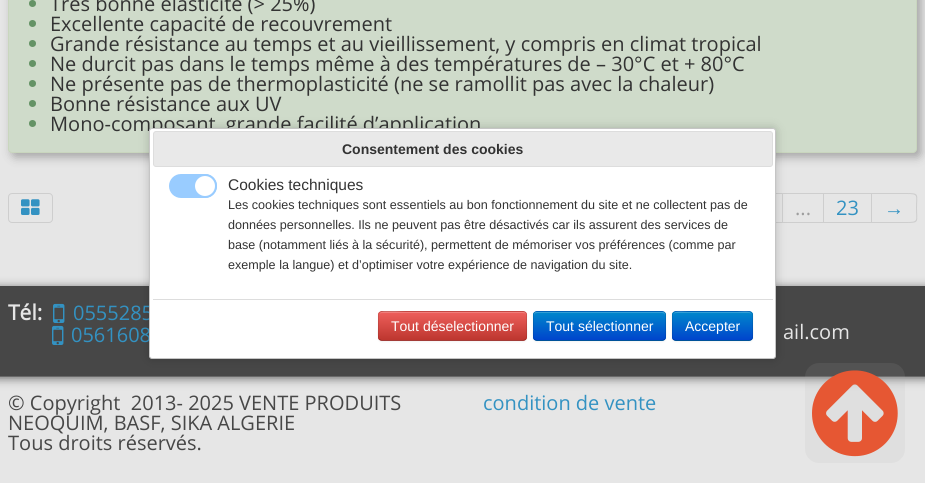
import math
import cairo

surface = cairo.ImageSurface(cairo.FORMAT_RGB24, 925, 483)
ctx = cairo.Context(surface)
options = cairo.FontOptions()
options.set_hint_metrics(cairo.HINT_METRICS_OFF)
options.set_hint_style(cairo.HINT_STYLE_NONE)
ctx.set_font_options(options)
ctx.set_miter_limit(4)


def set_color(code):
    ctx.set_source_rgb(*(v / 255 for v in bytes.fromhex(code[-6:])))


def draw_text(x, y, s, family, size, color, bold=False, italic=False):
    ctx.select_font_face(family, cairo.FONT_SLANT_ITALIC if italic else cairo.FONT_SLANT_NORMAL, cairo.FONT_WEIGHT_BOLD if bold else cairo.FONT_WEIGHT_NORMAL)
    ctx.set_font_size(size)
    set_color(color)
    ctx.move_to(x, y)
    ctx.show_text(s)


def fill_rect(x, y, w, h, color):
    set_color(color)
    ctx.rectangle(x, y, w, h)
    ctx.fill()


def rounded_rect(x, y, w, h, r):
    ctx.new_sub_path()
    for i, (u, v) in enumerate([(x + w - r, y + h - r), (x + r, y + h - r), (x + r, y + r), (x + w - r, y + r)]):
        ctx.arc(u, v, r, i * math.pi / 2, (i + 1) * math.pi / 2)
    ctx.close_path()


def draw_shadow(x, y, w, h, r, blur, alpha):
    ctx.push_group_with_content(cairo.CONTENT_ALPHA)
    ctx.set_operator(cairo.OPERATOR_SOURCE)
    for i in range(15, -16, -2):
        e = blur * i / 6
        if min(w, h) + 2 * e > 0:
            ctx.set_source_rgba(0, 0, 0, alpha * math.erfc((i - 1) / 8.5) / 2)
            rounded_rect(x - e, y - e, w + 2 * e, h + 2 * e, max(0, min(r + e + blur * .6, min(w, h) / 2 + e)))
            ctx.fill()
    ctx.mask(ctx.pop_group())


def draw_image(path, x, y, w, h):
    ctx.save()
    ctx.set_source_surface(cairo.ImageSurface.create_from_png(path), x, y)
    ctx.rectangle(x, y, w, h)
    ctx.fill()
    ctx.restore()


set_color("#e6e6e6")
ctx.paint()
set_color("#8d8d8d")
draw_shadow(12, -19, 909, 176, 4, 5, 0.75)
set_color("#cfdbca")
rounded_rect(8.5, -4.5, 908, 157, 3.5)
ctx.fill_preserve()
set_color("#c9d6be")
ctx.set_line_width(1)
ctx.stroke()
set_color("#649265")
ctx.arc(32.5, 3.5, 3.5, 0, 2 * math.pi)
ctx.fill()
draw_text(50, 11, "Très bonne élasticité (> 25%)", "Open Sans", 20, "#333333")
set_color("#649265")
ctx.new_path()
ctx.arc(32.5, 23.5, 3.5, 0, 2 * math.pi)
ctx.fill()
draw_text(50, 31, "Excellente capacité de recouvrement", "Open Sans", 20, "#333333")
set_color("#649265")
ctx.new_path()
ctx.arc(32.5, 43.5, 3.5, 0, 2 * math.pi)
ctx.fill()
draw_text(50, 51, "Grande résistance au temps et au vieillissement, y compris en climat tropical", "Open Sans", 20, "#333333")
set_color("#649265")
ctx.new_path()
ctx.arc(32.5, 63.5, 3.5, 0, 2 * math.pi)
ctx.fill()
draw_text(50, 71, "Ne durcit pas dans le temps même à des températures de – 30°C et + 80°C", "Open Sans", 20, "#333333")
set_color("#649265")
ctx.new_path()
ctx.arc(32.5, 83.5, 3.5, 0, 2 * math.pi)
ctx.fill()
draw_text(50, 91, "Ne présente pas de thermoplasticité (ne se ramollit pas avec la chaleur)", "Open Sans", 20, "#333333")
set_color("#649265")
ctx.new_path()
ctx.arc(32.5, 103.5, 3.5, 0, 2 * math.pi)
ctx.fill()
draw_text(50, 111, "Bonne résistance aux UV", "Open Sans", 20, "#333333")
set_color("#649265")
ctx.new_path()
ctx.arc(32.5, 123.5, 3.5, 0, 2 * math.pi)
ctx.fill()
draw_text(50, 131, "Mono-composant, grande facilité d’application", "Open Sans", 20, "#333333")
rounded_rect(8.5, 193.5, 44, 29, 3.5)
set_color("#cecece")
ctx.stroke()
draw_image("assets/img1.png", 21, 199, 19, 16)
fill_rect(776, 193, 96, 1, "#cecece")
fill_rect(782, 193, 1, 30, "#cecece")
fill_rect(776, 222, 7, 1, "#cecece")
fill_rect(823, 193, 1, 30, "#cecece")
fill_rect(783, 222, 41, 1, "#cecece")
draw_text(795, 215, "...", "Open Sans", 20, "#9e9e9e")
fill_rect(871, 193, 1, 30, "#cecece")
fill_rect(824, 222, 48, 1, "#cecece")
draw_text(836, 215, "23", "Open Sans", 20, "#3392c2")
set_color("#cecece")
ctx.set_fill_rule(cairo.FILL_RULE_EVEN_ODD)
ctx.new_path()
ctx.move_to(872, 193)
ctx.line_to(906, 193)
ctx.curve_to(920, 193, 917, 194, 917, 208)
ctx.curve_to(917, 222, 920, 223, 906, 223)
ctx.line_to(872, 223)
ctx.close_path()
ctx.move_to(872, 194)
ctx.line_to(906, 194)
ctx.curve_to(919, 194, 916, 195, 916, 208)
ctx.curve_to(916, 221, 919, 222, 906, 222)
ctx.line_to(872, 222)
ctx.close_path()
ctx.fill()
draw_text(884, 215, "→", "Liberation Serif", 20, "#3392c2")
set_color("#333333")
draw_shadow(-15, 288, 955, 90, 0, 5, 0.75)
fill_rect(0, 286, 925, 90, "#474747")
draw_text(8, 320, "Tél:", "Open Sans", 21, "#e6e6e6", bold=True)
draw_image("assets/img2.png", 53, 303, 12, 20)
draw_text(73, 320, "0555285", "Open Sans", 20, "#3392c2")
draw_image("assets/img2.png", 52, 325, 12, 20)
draw_text(71, 342, "0561608", "Open Sans", 20, "#3392c2")
draw_text(783, 339, "ail.com", "Open Sans", 20, "#e6e6e6")
fill_rect(0, 376, 925, 1, "#696969")
draw_text(8, 410, "© Copyright  2013- 2025 VENTE PRODUITS", "Open Sans", 20, "#474747")
draw_text(8, 430, "NEOQUIM, BASF, SIKA ALGERIE", "Open Sans", 20, "#474747")
draw_text(8, 450, "Tous droits réservés.", "Open Sans", 20, "#474747")
draw_text(483, 410, "condition de vente", "Open Sans", 20, "#3392c2")
ctx.set_source_rgba(0.655, 0.655, 0.655, 0.12)
rounded_rect(805, 363, 100, 100, 14)
ctx.fill()
draw_image("assets/img3.png", 812, 370, 86, 87)
set_color("#000000")
draw_shadow(149, 128, 627, 231, 3, 5, 0.2)
set_color("#ffffff")
rounded_rect(149.5, 128.5, 626, 230, 2.5)
ctx.fill_preserve()
set_color("#c5c5c5")
ctx.stroke()
set_color("#e9e9e9")
rounded_rect(153.5, 131.5, 619, 35, 2.5)
ctx.fill_preserve()
set_color("#dddddd")
ctx.stroke()
draw_text(342, 154, "Consentement des cookies", "Liberation Sans", 14, "#333333", bold=True)
set_color("#99ccff")
rounded_rect(170, 175, 46, 22, 11)
ctx.fill_preserve()
ctx.set_line_width(2)
ctx.stroke()
set_color("#ffffff")
ctx.arc(205, 186, 11, 0, 2 * math.pi)
ctx.fill_preserve()
set_color("#99ccff")
ctx.stroke()
draw_text(228, 190, "Cookies techniques", "Liberation Sans", 15.5, "#333333")
draw_text(228, 209, "Les cookies techniques sont essentiels au bon fonctionnement du site et ne collectent pas de", "Liberation Sans", 12.6, "#333333")
draw_text(228, 229, "données personnelles. Ils ne peuvent pas être désactivés car ils assurent des services de", "Liberation Sans", 12.6, "#333333")
draw_text(228, 249, "base (notamment liés à la sécurité), permettent de mémoriser vos préférences (comme par", "Liberation Sans", 12.6, "#333333")
draw_text(228, 269, "exemple la langue) et d’optimiser votre expérience de navigation du site.", "Liberation Sans", 12.6, "#333333")
fill_rect(153, 299, 620, 1, "#dddddd")
set_color("#000000")
draw_shadow(378, 312, 149, 30, 4, 1, 0.05)
set_color("#da4f49")
rounded_rect(378, 311, 149, 30, 4)
ctx.fill()
ctx.save()
ctx.set_fill_rule(cairo.FILL_RULE_WINDING)
rounded_rect(378, 311, 149, 30, 4)
ctx.clip()
gradient = cairo.LinearGradient(453, 312, 453, 340)
gradient.add_color_stop_rgba(0, 0.933, 0.373, 0.357, 1)
gradient.add_color_stop_rgba(1, 0.741, 0.212, 0.184, 1)
ctx.set_source(gradient)
ctx.rectangle(378, 312, 149, 28)
ctx.fill()
ctx.restore()
ctx.set_source_rgba(1, 1, 1, 0.2)
ctx.set_fill_rule(cairo.FILL_RULE_WINDING)
ctx.new_path()
ctx.move_to(382, 313)
ctx.line_to(523, 313)
ctx.curve_to(525, 313, 526, 314, 526, 316)
ctx.curve_to(526, 314, 526, 313, 524, 312)
ctx.line_to(406, 312)
ctx.curve_to(398, 312, 379, 307, 379, 316)
ctx.curve_to(379, 314, 380, 313, 382, 313)
ctx.close_path()
ctx.fill()
ctx.new_path()
ctx.move_to(525.5, 339.5)
ctx.curve_to(525, 340, 524, 340.5, 523, 340.5)
ctx.line_to(382, 340.5)
ctx.curve_to(381, 340.5, 380, 340, 379.5, 339.5)
ctx.set_source_rgba(0, 0, 0, 0.25)
ctx.set_line_width(1)
ctx.stroke()
ctx.new_path()
ctx.move_to(379.5, 339.5)
ctx.curve_to(377.5, 337.5, 378.5, 329, 378.5, 326)
ctx.line_to(378.5, 318.5)
ctx.curve_to(378.5, 316, 378, 311.5, 382, 311.5)
ctx.line_to(523, 311.5)
ctx.curve_to(527, 311.5, 526.5, 316, 526.5, 318.5)
ctx.line_to(526.5, 326)
ctx.curve_to(526.5, 329, 527.5, 337.5, 525.5, 339.5)
ctx.set_source_rgba(0, 0, 0, 0.1)
ctx.stroke()
draw_text(391, 331, "Tout déselectionner", "Liberation Sans", 14, "#ffffff")
set_color("#000000")
draw_shadow(533, 312, 133, 30, 4, 1, 0.05)
set_color("#006dcc")
rounded_rect(533, 311, 133, 30, 4)
ctx.fill()
ctx.save()
rounded_rect(533, 311, 133, 30, 4)
ctx.clip()
gradient = cairo.LinearGradient(600, 312, 600, 340)
gradient.add_color_stop_rgba(0, 0, 0.533, 0.8, 1)
gradient.add_color_stop_rgba(1, 0, 0.267, 0.8, 1)
ctx.set_source(gradient)
ctx.rectangle(533, 312, 133, 28)
ctx.fill()
ctx.restore()
ctx.set_source_rgba(1, 1, 1, 0.2)
ctx.new_path()
ctx.move_to(537, 313)
ctx.line_to(662, 313)
ctx.curve_to(664, 313, 665, 314, 665, 316)
ctx.curve_to(665, 314, 665, 312, 663, 312)
ctx.line_to(536, 312)
ctx.curve_to(534, 312, 534, 314, 534, 316)
ctx.curve_to(534, 314, 535, 313, 537, 313)
ctx.close_path()
ctx.fill()
ctx.new_path()
ctx.move_to(664.5, 339.5)
ctx.curve_to(664, 340, 663, 340.5, 662, 340.5)
ctx.line_to(537, 340.5)
ctx.curve_to(536, 340.5, 535, 340, 534.5, 339.5)
ctx.set_source_rgba(0, 0, 0, 0.25)
ctx.stroke()
ctx.new_path()
ctx.move_to(534.5, 339.5)
ctx.curve_to(532.5, 337.5, 533.5, 329, 533.5, 326)
ctx.line_to(533.5, 318.5)
ctx.curve_to(533.5, 316, 533, 311.5, 537, 311.5)
ctx.line_to(662, 311.5)
ctx.curve_to(666, 311.5, 665.5, 316, 665.5, 318.5)
ctx.line_to(665.5, 326)
ctx.curve_to(665.5, 329, 666.5, 337.5, 664.5, 339.5)
ctx.set_source_rgba(0, 0, 0, 0.1)
ctx.stroke()
draw_text(546, 331, "Tout sélectionner", "Liberation Sans", 14, "#ffffff")
set_color("#000000")
draw_shadow(672, 312, 81, 30, 4, 1, 0.05)
set_color("#006dcc")
rounded_rect(672, 311, 81, 30, 4)
ctx.fill()
ctx.save()
rounded_rect(672, 311, 81, 30, 4)
ctx.clip()
gradient = cairo.LinearGradient(713, 312, 713, 340)
gradient.add_color_stop_rgba(0, 0, 0.533, 0.8, 1)
gradient.add_color_stop_rgba(1, 0, 0.267, 0.8, 1)
ctx.set_source(gradient)
ctx.rectangle(672, 312, 81, 28)
ctx.fill()
ctx.restore()
ctx.set_source_rgba(1, 1, 1, 0.2)
ctx.new_path()
ctx.move_to(676, 313)
ctx.line_to(749, 313)
ctx.curve_to(751, 313, 752, 314, 752, 316)
ctx.curve_to(752, 309, 741, 312, 737, 312)
ctx.line_to(688, 312)
ctx.curve_to(684, 312, 673, 309, 673, 316)
ctx.curve_to(673, 314, 674, 313, 676, 313)
ctx.close_path()
ctx.fill()
ctx.new_path()
ctx.move_to(751.5, 339.5)
ctx.curve_to(751, 340, 750, 340.5, 749, 340.5)
ctx.line_to(676, 340.5)
ctx.curve_to(675, 340.5, 674, 340, 673.5, 339.5)
ctx.set_source_rgba(0, 0, 0, 0.25)
ctx.stroke()
ctx.new_path()
ctx.move_to(673.5, 339.5)
ctx.curve_to(671.5, 337.5, 672.5, 329, 672.5, 326)
ctx.curve_to(672.5, 309, 670, 311.5, 688, 311.5)
ctx.line_to(737, 311.5)
ctx.curve_to(755, 311.5, 752.5, 309, 752.5, 326)
ctx.curve_to(752.5, 329, 753.5, 337.5, 751.5, 339.5)
ctx.set_source_rgba(0, 0, 0, 0.1)
ctx.stroke()
draw_text(685, 331, "Accepter", "Liberation Sans", 14, "#ffffff")
surface.write_to_png("output.png")
